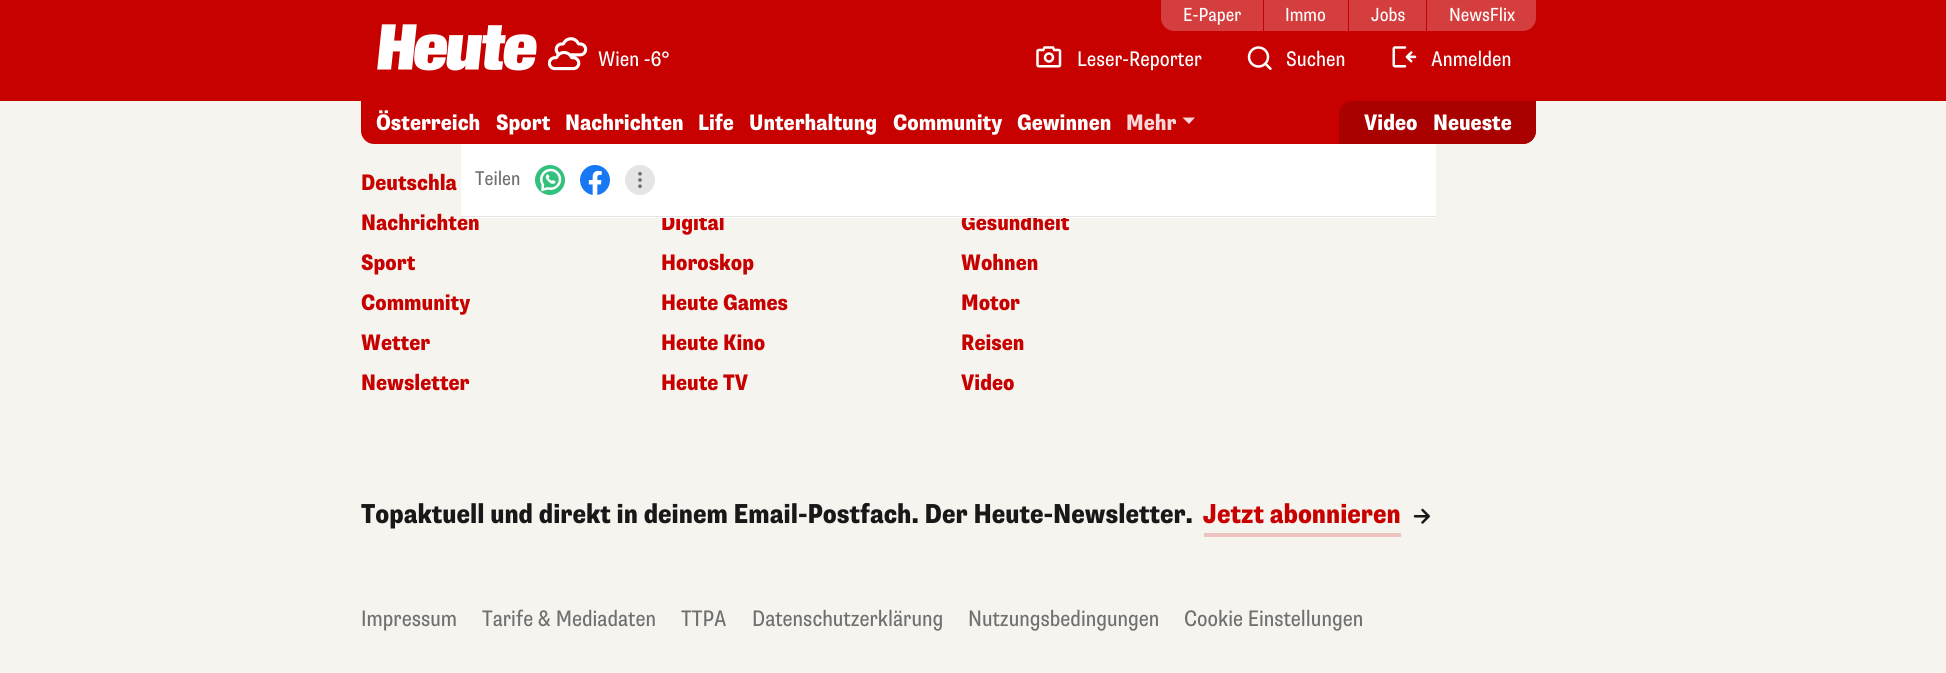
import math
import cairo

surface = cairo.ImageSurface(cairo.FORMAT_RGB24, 1946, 673)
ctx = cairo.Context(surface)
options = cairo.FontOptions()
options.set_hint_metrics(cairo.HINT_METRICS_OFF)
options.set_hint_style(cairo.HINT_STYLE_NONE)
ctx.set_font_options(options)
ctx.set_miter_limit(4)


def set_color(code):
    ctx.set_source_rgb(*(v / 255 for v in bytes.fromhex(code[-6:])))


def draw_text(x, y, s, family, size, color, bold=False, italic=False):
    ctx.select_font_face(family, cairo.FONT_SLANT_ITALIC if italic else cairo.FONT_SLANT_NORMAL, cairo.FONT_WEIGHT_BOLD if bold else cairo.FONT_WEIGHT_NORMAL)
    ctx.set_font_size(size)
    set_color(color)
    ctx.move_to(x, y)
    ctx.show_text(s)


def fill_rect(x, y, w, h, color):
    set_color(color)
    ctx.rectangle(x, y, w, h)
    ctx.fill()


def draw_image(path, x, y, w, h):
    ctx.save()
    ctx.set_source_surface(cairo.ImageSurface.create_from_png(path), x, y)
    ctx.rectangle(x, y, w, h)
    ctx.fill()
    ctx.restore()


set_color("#f6f4ef")
ctx.paint()
fill_rect(0, 0, 1946, 101, "#c70000")
set_color("#d53e3e")
ctx.new_path()
ctx.move_to(1161, -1)
ctx.line_to(1536, -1)
ctx.line_to(1536, 18)
ctx.curve_to(1536, 25, 1530, 31, 1523, 31)
ctx.line_to(1174, 31)
ctx.curve_to(1167, 31, 1161, 25, 1161, 18)
ctx.close_path()
ctx.fill()
fill_rect(1263, 0, 1, 31, "#c70000")
draw_text(1183, 21, "E-Paper", "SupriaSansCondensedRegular", 19, "#ffffff")
fill_rect(1348, 0, 1, 31, "#c70000")
draw_text(1285, 21, "Immo", "SupriaSansCondensedRegular", 19, "#ffffff")
fill_rect(1426, 0, 1, 31, "#c70000")
draw_text(1371, 21, "Jobs", "SupriaSansCondensedRegular", 19, "#ffffff")
draw_text(1449, 21, "NewsFlix", "SupriaSansCondensedRegular", 19, "#ffffff")
draw_image("assets/img1.png", 377, 24, 160, 47)
draw_image("assets/img2.png", 548, 37, 40, 34)
draw_text(598, 66, "Wien -6°", "SupriaSansCondensedRegular", 21.25, "#ffffff")
draw_image("assets/img3.png", 1036, 46, 26, 22)
draw_text(1077, 66, "Leser-Reporter", "SupriaSansCondensedRegular", 21.25, "#ffffff")
draw_image("assets/img4.png", 1247, 46, 25, 24)
draw_text(1286, 66, "Suchen", "SupriaSansCondensedRegular", 21.25, "#ffffff")
draw_image("assets/img5.png", 1392, 46, 25, 22)
draw_text(1431, 66, "Anmelden", "SupriaSansCondensedRegular", 21.25, "#ffffff")
set_color("#c70000")
ctx.new_path()
ctx.move_to(361, 101)
ctx.line_to(1536, 101)
ctx.line_to(1536, 131)
ctx.curve_to(1536, 138, 1530, 144, 1523, 144)
ctx.line_to(374, 144)
ctx.curve_to(367, 144, 361, 138, 361, 131)
ctx.close_path()
ctx.fill()
draw_text(376, 130, "Österreich", "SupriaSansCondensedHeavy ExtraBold", 22.5, "#ffffff")
draw_text(496, 130, "Sport", "SupriaSansCondensedHeavy ExtraBold", 22.5, "#ffffff")
draw_text(565, 130, "Nachrichten", "SupriaSansCondensedHeavy ExtraBold", 22.5, "#ffffff")
draw_text(698, 130, "Life", "SupriaSansCondensedHeavy ExtraBold", 22.5, "#ffffff")
draw_text(749, 130, "Unterhaltung", "SupriaSansCondensedHeavy ExtraBold", 22.5, "#ffffff")
draw_text(893, 130, "Community", "SupriaSansCondensedHeavy ExtraBold", 22.5, "#ffffff")
draw_text(1017, 130, "Gewinnen", "SupriaSansCondensedHeavy ExtraBold", 22.5, "#ffffff")
draw_text(1126, 130, "Mehr", "SupriaSansCondensedHeavy ExtraBold", 22.5, "#fad6d6")
ctx.new_path()
ctx.move_to(1182.5, 117.5)
ctx.line_to(1195, 117.5)
ctx.line_to(1189, 124)
ctx.close_path()
ctx.fill()
set_color("#a90000")
ctx.new_path()
ctx.move_to(1352, 101)
ctx.line_to(1536, 101)
ctx.line_to(1536, 131)
ctx.curve_to(1536, 138, 1530, 144, 1523, 144)
ctx.line_to(1339, 144)
ctx.line_to(1339, 114)
ctx.curve_to(1339, 107, 1345, 101, 1352, 101)
ctx.close_path()
ctx.fill()
draw_text(1364, 130, "Video", "SupriaSansCondensedHeavy ExtraBold", 22.5, "#ffffff")
draw_text(1433, 130, "Neueste", "SupriaSansCondensedHeavy ExtraBold", 22.5, "#ffffff")
draw_text(361, 230, "Nachrichten", "SupriaSansCondensedHeavy ExtraBold", 22.5, "#c70000")
draw_text(661, 230, "Digital", "SupriaSansCondensedHeavy ExtraBold", 22.5, "#c70000")
draw_text(961, 230, "Gesundheit", "SupriaSansCondensedHeavy ExtraBold", 22.5, "#c70000")
fill_rect(461, 144, 975, 74, "#ffffff")
fill_rect(461, 216, 975, 1, "#e4e4e4")
draw_text(475, 185, "Teilen", "SupriaSansCondensedRegular", 20, "#707070")
draw_image("assets/img6.png", 535, 165, 30, 30)
draw_image("assets/img7.png", 580, 165, 30, 30)
set_color("#e4e4e4")
ctx.arc(640, 180, 15, 0, 2 * math.pi)
ctx.fill()
draw_image("assets/img8.png", 638, 171, 4, 18)
draw_text(361, 190, "Deutschla", "SupriaSansCondensedHeavy ExtraBold", 22.5, "#c70000")
draw_text(361, 270, "Sport", "SupriaSansCondensedHeavy ExtraBold", 22.5, "#c70000")
draw_text(361, 310, "Community", "SupriaSansCondensedHeavy ExtraBold", 22.5, "#c70000")
draw_text(361, 350, "Wetter", "SupriaSansCondensedHeavy ExtraBold", 22.5, "#c70000")
draw_text(361, 390, "Newsletter", "SupriaSansCondensedHeavy ExtraBold", 22.5, "#c70000")
draw_text(661, 270, "Horoskop", "SupriaSansCondensedHeavy ExtraBold", 22.5, "#c70000")
draw_text(661, 310, "Heute Games", "SupriaSansCondensedHeavy ExtraBold", 22.5, "#c70000")
draw_text(661, 350, "Heute Kino", "SupriaSansCondensedHeavy ExtraBold", 22.5, "#c70000")
draw_text(661, 390, "Heute TV", "SupriaSansCondensedHeavy ExtraBold", 22.5, "#c70000")
draw_text(961, 270, "Wohnen", "SupriaSansCondensedHeavy ExtraBold", 22.5, "#c70000")
draw_text(961, 310, "Motor", "SupriaSansCondensedHeavy ExtraBold", 22.5, "#c70000")
draw_text(961, 350, "Reisen", "SupriaSansCondensedHeavy ExtraBold", 22.5, "#c70000")
draw_text(961, 390, "Video", "SupriaSansCondensedHeavy ExtraBold", 22.5, "#c70000")
draw_text(361, 523, "Topaktuell und direkt in deinem Email-Postfach. Der Heute-Newsletter.", "SupriaSansCondensedHeavy ExtraBold", 27.5, "#191717")
fill_rect(1204, 533, 197, 4, "#edc3bf")
draw_text(1203, 523, "Jetzt abonnieren", "SupriaSansCondensedHeavy ExtraBold", 27.5, "#c70000")
draw_image("assets/img9.png", 1413, 508, 17, 16)
draw_text(361, 626, "Impressum", "SupriaSansCondensedRegular", 22.5, "#707070")
draw_text(482, 626, "Tarife & Mediadaten", "SupriaSansCondensedRegular", 22.5, "#707070")
draw_text(681, 626, "TTPA", "SupriaSansCondensedRegular", 22.5, "#707070")
draw_text(752, 626, "Datenschutzerklärung", "SupriaSansCondensedRegular", 22.5, "#707070")
draw_text(968, 626, "Nutzungsbedingungen", "SupriaSansCondensedRegular", 22.5, "#707070")
draw_text(1184, 626, "Cookie Einstellungen", "SupriaSansCondensedRegular", 22.5, "#707070")
surface.write_to_png("output.png")
